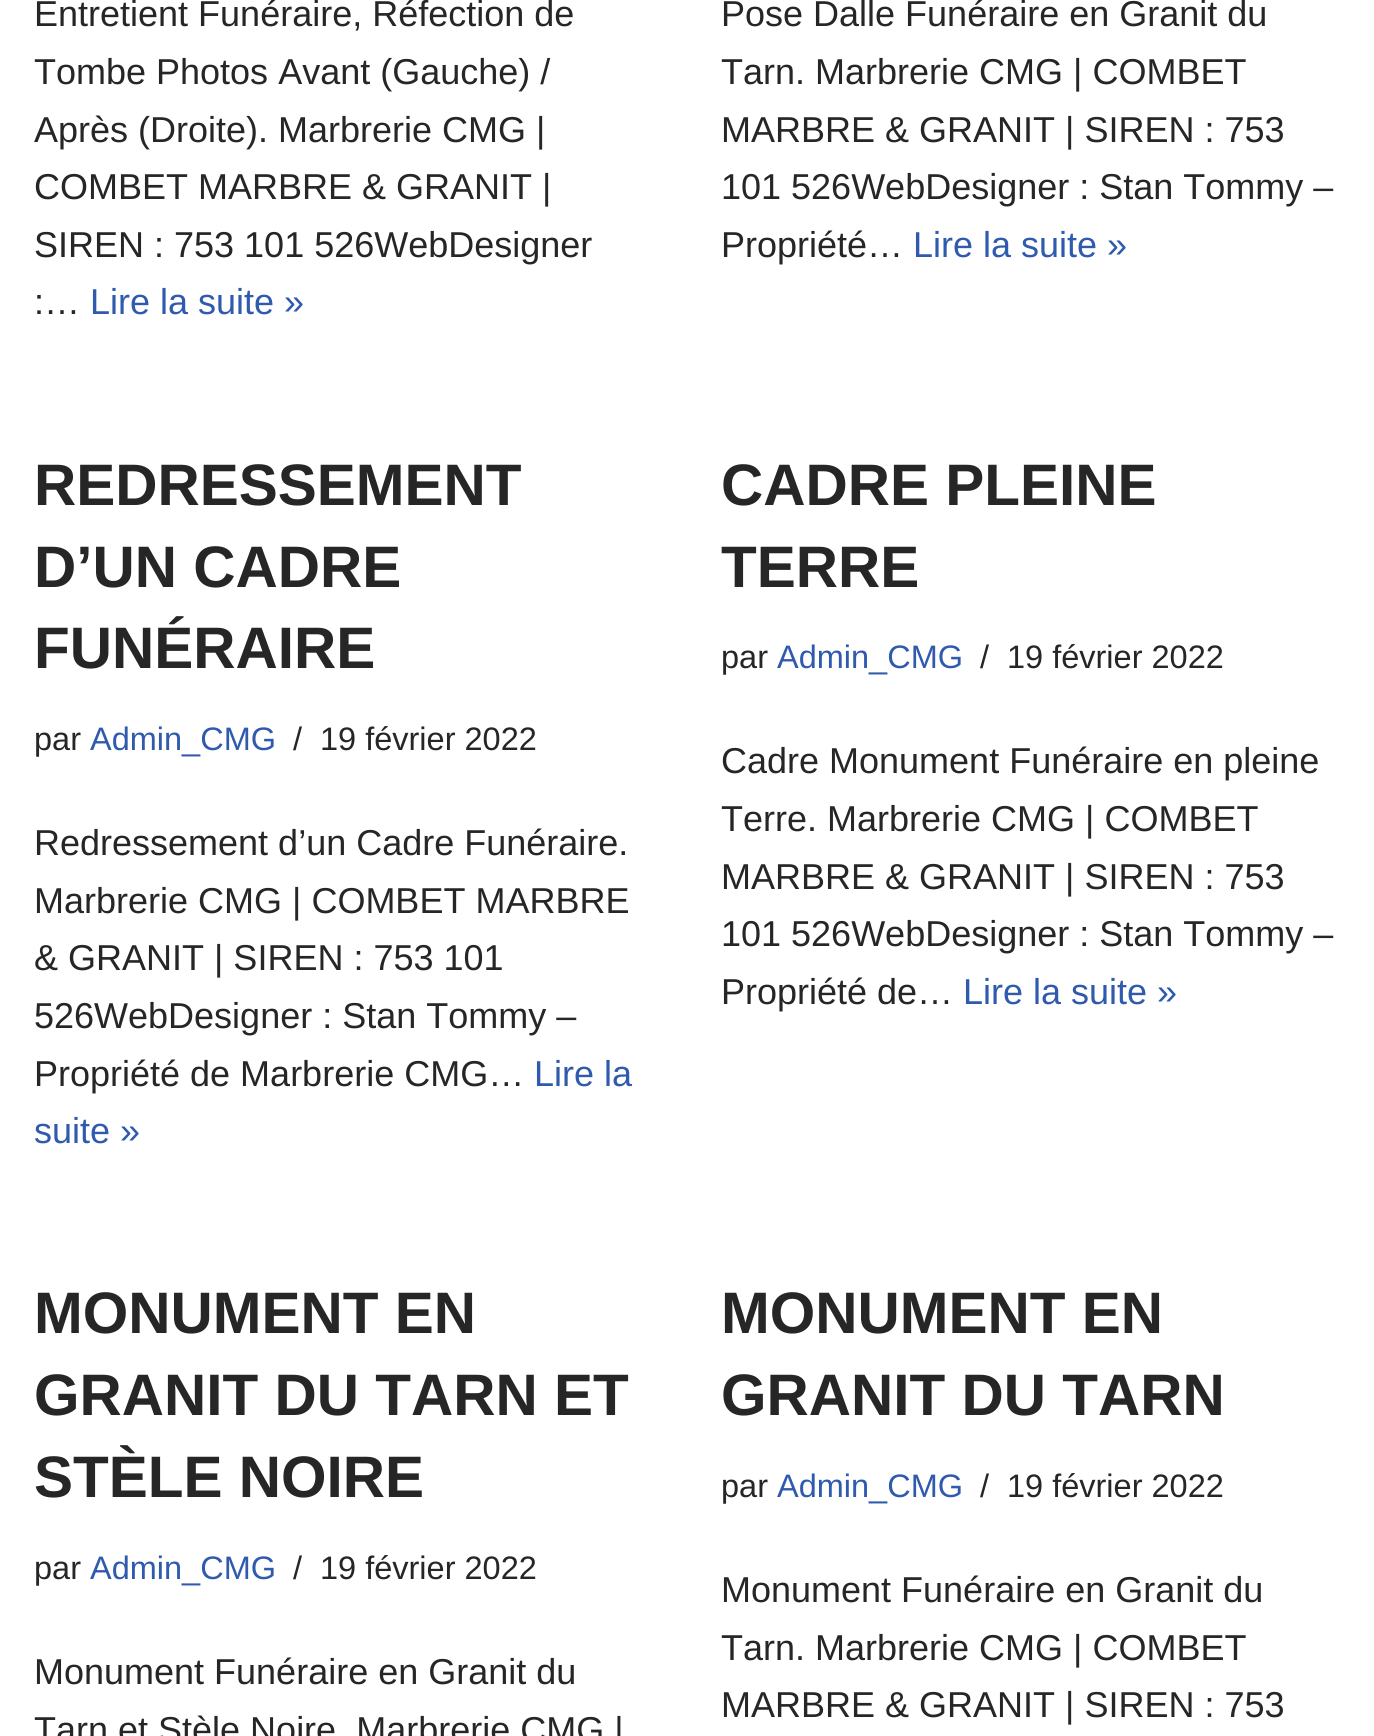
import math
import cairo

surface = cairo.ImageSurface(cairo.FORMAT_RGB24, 1374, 1736)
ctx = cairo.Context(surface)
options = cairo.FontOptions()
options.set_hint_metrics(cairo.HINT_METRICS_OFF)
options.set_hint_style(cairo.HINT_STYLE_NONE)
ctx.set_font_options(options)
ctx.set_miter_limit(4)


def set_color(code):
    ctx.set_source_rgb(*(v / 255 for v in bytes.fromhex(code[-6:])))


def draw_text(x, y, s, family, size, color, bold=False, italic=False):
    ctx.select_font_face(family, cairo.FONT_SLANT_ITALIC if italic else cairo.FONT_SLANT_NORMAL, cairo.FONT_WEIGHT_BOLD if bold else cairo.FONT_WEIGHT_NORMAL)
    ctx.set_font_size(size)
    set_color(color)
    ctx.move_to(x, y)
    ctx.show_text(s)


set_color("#ffffff")
ctx.paint()
draw_text(34, 26, "Entretient Funéraire, Réfection de", "Liberation Sans", 36, "#272626")
draw_text(34, 84, "Tombe Photos Avant (Gauche) /", "Liberation Sans", 36, "#272626")
draw_text(34, 142, "Après (Droite). Marbrerie CMG |", "Liberation Sans", 36, "#272626")
draw_text(34, 199, "COMBET MARBRE & GRANIT |", "Liberation Sans", 36, "#272626")
draw_text(34, 257, "SIREN : 753 101 526WebDesigner", "Liberation Sans", 36, "#272626")
draw_text(34, 314, ":…", "Liberation Sans", 36, "#272626")
draw_text(90, 314, "Lire la suite »", "Liberation Sans", 36, "#2f5aae")
draw_text(721, 26, "Pose Dalle Funéraire en Granit du", "Liberation Sans", 36, "#272626")
draw_text(721, 84, "Tarn. Marbrerie CMG | COMBET", "Liberation Sans", 36, "#272626")
draw_text(721, 142, "MARBRE & GRANIT | SIREN : 753", "Liberation Sans", 36, "#272626")
draw_text(721, 199, "101 526WebDesigner : Stan Tommy –", "Liberation Sans", 36, "#272626")
draw_text(721, 257, "Propriété…", "Liberation Sans", 36, "#272626")
draw_text(913, 257, "Lire la suite »", "Liberation Sans", 36, "#2f5aae")
draw_text(34, 505, "REDRESSEMENT", "Liberation Sans", 58.5, "#272626", bold=True)
draw_text(34, 587, "D’UN CADRE", "Liberation Sans", 58.5, "#272626", bold=True)
draw_text(34, 668, "FUNÉRAIRE", "Liberation Sans", 58.5, "#272626", bold=True)
draw_text(34, 750, "par", "Liberation Sans", 32.5, "#272626")
draw_text(90, 750, "Admin_CMG", "Liberation Sans", 32.5, "#2f5aae")
draw_text(293, 750, "/", "Liberation Sans", 32.5, "#272626")
draw_text(320, 750, "19 février 2022", "Liberation Sans", 32.5, "#272626")
draw_text(34, 855, "Redressement d’un Cadre Funéraire.", "Liberation Sans", 36, "#272626")
draw_text(34, 913, "Marbrerie CMG | COMBET MARBRE", "Liberation Sans", 36, "#272626")
draw_text(34, 970, "& GRANIT | SIREN : 753 101", "Liberation Sans", 36, "#272626")
draw_text(34, 1028, "526WebDesigner : Stan Tommy –", "Liberation Sans", 36, "#272626")
draw_text(34, 1086, "Propriété de Marbrerie CMG…", "Liberation Sans", 36, "#272626")
draw_text(534, 1086, "Lire la", "Liberation Sans", 36, "#2f5aae")
draw_text(34, 1143, "suite »", "Liberation Sans", 36, "#2f5aae")
draw_text(721, 505, "CADRE PLEINE", "Liberation Sans", 58.5, "#272626", bold=True)
draw_text(721, 587, "TERRE", "Liberation Sans", 58.5, "#272626", bold=True)
draw_text(721, 668, "par", "Liberation Sans", 32.5, "#272626")
draw_text(777, 668, "Admin_CMG", "Liberation Sans", 32.5, "#2f5aae")
draw_text(980, 668, "/", "Liberation Sans", 32.5, "#272626")
draw_text(1007, 668, "19 février 2022", "Liberation Sans", 32.5, "#272626")
draw_text(721, 773, "Cadre Monument Funéraire en pleine", "Liberation Sans", 36, "#272626")
draw_text(721, 831, "Terre. Marbrerie CMG | COMBET", "Liberation Sans", 36, "#272626")
draw_text(721, 889, "MARBRE & GRANIT | SIREN : 753", "Liberation Sans", 36, "#272626")
draw_text(721, 946, "101 526WebDesigner : Stan Tommy –", "Liberation Sans", 36, "#272626")
draw_text(721, 1004, "Propriété de…", "Liberation Sans", 36, "#272626")
draw_text(963, 1004, "Lire la suite »", "Liberation Sans", 36, "#2f5aae")
draw_text(34, 1333, "MONUMENT EN", "Liberation Sans", 58.5, "#272626", bold=True)
draw_text(34, 1415, "GRANIT DU TARN ET", "Liberation Sans", 58.5, "#272626", bold=True)
draw_text(34, 1497, "STÈLE NOIRE", "Liberation Sans", 58.5, "#272626", bold=True)
draw_text(34, 1579, "par", "Liberation Sans", 32.5, "#272626")
draw_text(90, 1579, "Admin_CMG", "Liberation Sans", 32.5, "#2f5aae")
draw_text(293, 1579, "/", "Liberation Sans", 32.5, "#272626")
draw_text(320, 1579, "19 février 2022", "Liberation Sans", 32.5, "#272626")
draw_text(34, 1684, "Monument Funéraire en Granit du", "Liberation Sans", 36, "#272626")
draw_text(34, 1742, "Tarn et Stèle Noire. Marbrerie CMG |", "Liberation Sans", 36, "#272626")
draw_text(721, 1333, "MONUMENT EN", "Liberation Sans", 58.5, "#272626", bold=True)
draw_text(721, 1415, "GRANIT DU TARN", "Liberation Sans", 58.5, "#272626", bold=True)
draw_text(721, 1497, "par", "Liberation Sans", 32.5, "#272626")
draw_text(777, 1497, "Admin_CMG", "Liberation Sans", 32.5, "#2f5aae")
draw_text(980, 1497, "/", "Liberation Sans", 32.5, "#272626")
draw_text(1007, 1497, "19 février 2022", "Liberation Sans", 32.5, "#272626")
draw_text(721, 1602, "Monument Funéraire en Granit du", "Liberation Sans", 36, "#272626")
draw_text(721, 1660, "Tarn. Marbrerie CMG | COMBET", "Liberation Sans", 36, "#272626")
draw_text(721, 1717, "MARBRE & GRANIT | SIREN : 753", "Liberation Sans", 36, "#272626")
surface.write_to_png("output.png")
